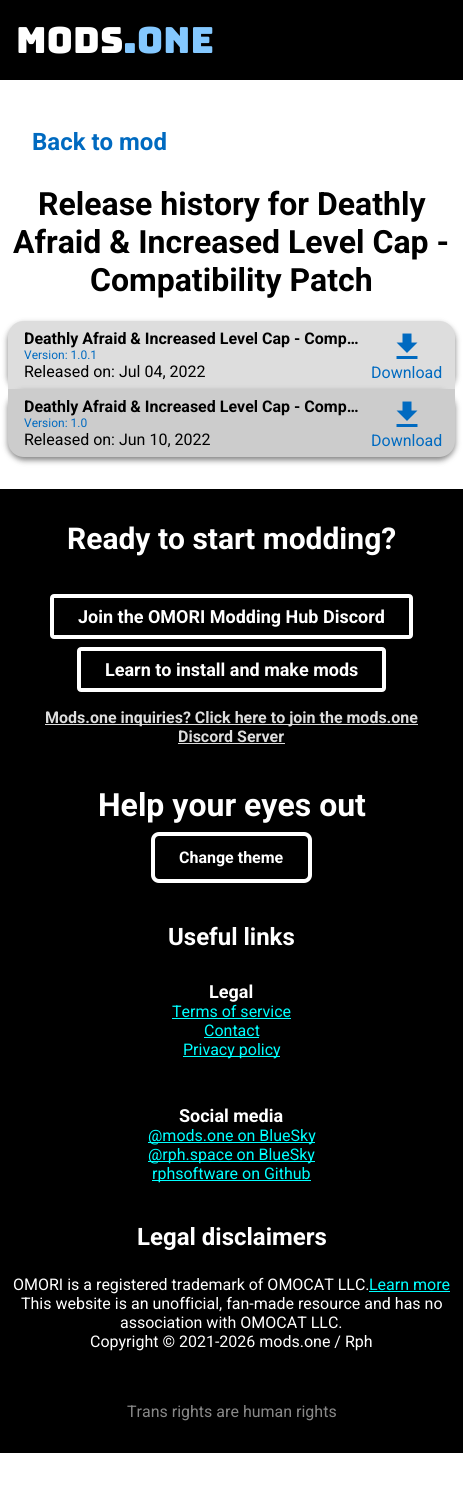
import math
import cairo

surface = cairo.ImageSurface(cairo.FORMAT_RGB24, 463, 1496)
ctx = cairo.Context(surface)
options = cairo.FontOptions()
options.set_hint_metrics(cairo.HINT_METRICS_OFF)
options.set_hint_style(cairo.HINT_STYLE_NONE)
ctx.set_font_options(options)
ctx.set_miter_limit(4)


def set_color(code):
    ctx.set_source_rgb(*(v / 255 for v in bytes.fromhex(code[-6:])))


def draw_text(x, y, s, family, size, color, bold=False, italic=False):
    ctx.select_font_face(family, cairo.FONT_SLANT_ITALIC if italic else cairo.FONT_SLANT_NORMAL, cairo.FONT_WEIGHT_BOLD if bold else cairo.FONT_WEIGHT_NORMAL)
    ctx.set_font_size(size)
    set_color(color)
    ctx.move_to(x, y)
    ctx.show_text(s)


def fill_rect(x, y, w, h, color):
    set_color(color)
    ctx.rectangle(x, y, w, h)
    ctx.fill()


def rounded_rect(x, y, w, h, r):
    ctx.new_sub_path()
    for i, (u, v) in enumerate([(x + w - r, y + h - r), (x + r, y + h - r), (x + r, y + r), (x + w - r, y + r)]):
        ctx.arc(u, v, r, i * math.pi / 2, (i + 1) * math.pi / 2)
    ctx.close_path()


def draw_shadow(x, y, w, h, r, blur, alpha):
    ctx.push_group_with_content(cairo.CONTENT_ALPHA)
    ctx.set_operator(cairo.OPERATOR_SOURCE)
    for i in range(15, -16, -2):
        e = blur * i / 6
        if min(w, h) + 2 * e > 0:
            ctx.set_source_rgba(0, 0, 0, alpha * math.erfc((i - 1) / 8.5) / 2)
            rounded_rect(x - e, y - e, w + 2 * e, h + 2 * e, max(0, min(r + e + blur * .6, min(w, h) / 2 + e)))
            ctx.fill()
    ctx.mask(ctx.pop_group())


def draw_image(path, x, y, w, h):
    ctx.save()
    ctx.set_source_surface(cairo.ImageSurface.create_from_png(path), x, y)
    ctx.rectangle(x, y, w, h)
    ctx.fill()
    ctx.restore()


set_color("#ffffff")
ctx.paint()
fill_rect(0, 0, 463, 80, "#000000")
draw_text(16, 53, "MODS", "Bungee", 36, "#ffffff")
draw_text(123, 53, ".ONE", "Bungee", 36, "#84c8ff")
draw_text(32, 150, "Back to mod", "Roboto", 24, "#006ac0", bold=True)
draw_text(38, 215, "Release history for Deathly", "Roboto", 32, "#000000", bold=True)
draw_text(13, 253, "Afraid & Increased Level Cap -", "Roboto", 32, "#000000", bold=True)
draw_text(90, 291, "Compatibility Patch", "Roboto", 32, "#000000", bold=True)
set_color("#000000")
draw_shadow(8, 324, 447, 68, 16, 3, 0.5)
set_color("#dddddd")
ctx.new_path()
ctx.move_to(24, 321)
ctx.line_to(439, 321)
ctx.curve_to(448, 321, 455, 328, 455, 337)
ctx.line_to(455, 389)
ctx.line_to(8, 389)
ctx.line_to(8, 337)
ctx.curve_to(8, 328, 15, 321, 24, 321)
ctx.close_path()
ctx.fill()
draw_text(24, 344, "Deathly Afraid & Increased Level Cap - Comp…", "Roboto", 16, "#000000", bold=True)
draw_text(24, 359, "Version: 1.0.1", "Roboto", 12, "#006ac0")
draw_text(24, 377, "Released on: Jul 04, 2022", "Roboto", 16, "#000000")
draw_image("assets/img1.png", 396, 333, 22, 26)
draw_text(371, 378, "Download", "Roboto", 16, "#006ac0")
set_color("#000000")
draw_shadow(8, 392, 447, 68, 16, 3, 0.5)
set_color("#cccccc")
ctx.new_path()
ctx.move_to(8, 389)
ctx.line_to(455, 389)
ctx.line_to(455, 441)
ctx.curve_to(455, 450, 448, 457, 439, 457)
ctx.line_to(24, 457)
ctx.curve_to(15, 457, 8, 450, 8, 441)
ctx.close_path()
ctx.fill()
draw_text(24, 412, "Deathly Afraid & Increased Level Cap - Comp…", "Roboto", 16, "#000000", bold=True)
draw_text(24, 427, "Version: 1.0", "Roboto", 12, "#006ac0")
draw_text(24, 445, "Released on: Jun 10, 2022", "Roboto", 16, "#000000")
draw_image("assets/img2.png", 396, 401, 22, 26)
draw_text(371, 446, "Download", "Roboto", 16, "#006ac0")
fill_rect(0, 489, 463, 964, "#000000")
draw_text(67, 549, "Ready to start modding?", "Roboto", 30, "#ffffff", bold=True)
rounded_rect(52, 596, 359, 41, 2)
ctx.set_line_width(4)
ctx.stroke()
draw_text(78, 623, "Join the OMORI Modding Hub Discord", "Roboto", 18, "#ffffff", bold=True)
rounded_rect(79, 649, 305, 41, 2)
ctx.stroke()
draw_text(105, 676, "Learn to install and make mods", "Roboto", 18, "#ffffff", bold=True)
fill_rect(45, 724, 373, 1, "#dddddd")
draw_text(45, 723, "Mods.one inquiries? Click here to join the mods.one", "Roboto", 16, "#dddddd", bold=True)
draw_text(178, 742, "Discord Server", "Roboto", 16, "#dddddd", bold=True)
fill_rect(178, 743, 107, 1, "#dddddd")
draw_text(98, 816, "Help your eyes out", "Roboto", 32, "#ffffff", bold=True)
rounded_rect(153, 834, 157, 47, 6)
ctx.stroke()
draw_text(179, 863, "Change theme", "Roboto", 16, "#ffffff", bold=True)
draw_text(168, 945, "Useful links", "Roboto", 24, "#ffffff", bold=True)
draw_text(209, 998, "Legal", "Roboto", 18, "#ffffff", bold=True)
draw_text(172, 1017, "Terms of service", "Roboto", 16, "#00ffff")
fill_rect(172, 1018, 119, 1, "#00ffff")
draw_text(204, 1036, "Contact", "Roboto", 16, "#00ffff")
fill_rect(204, 1037, 55, 1, "#00ffff")
fill_rect(183, 1056, 97, 1, "#00ffff")
draw_text(183, 1055, "Privacy policy", "Roboto", 16, "#00ffff")
draw_text(179, 1122, "Social media", "Roboto", 18, "#ffffff", bold=True)
fill_rect(148, 1142, 167, 1, "#00ffff")
draw_text(148, 1141, "@mods.one on BlueSky", "Roboto", 16, "#00ffff")
fill_rect(148, 1161, 167, 1, "#00ffff")
draw_text(148, 1160, "@rph.space on BlueSky", "Roboto", 16, "#00ffff")
fill_rect(152, 1180, 159, 1, "#00ffff")
draw_text(152, 1179, "rphsoftware on Github", "Roboto", 16, "#00ffff")
draw_text(137, 1245, "Legal disclaimers", "Roboto", 24, "#ffffff", bold=True)
draw_text(13, 1290, "OMORI is a registered trademark of OMOCAT LLC.", "Roboto", 16, "#ffffff")
fill_rect(369, 1291, 81, 1, "#00ffff")
draw_text(369, 1290, "Learn more", "Roboto", 16, "#00ffff")
draw_text(21, 1309, "This website is an unofficial, fan-made resource and has no", "Roboto", 16, "#ffffff")
draw_text(120, 1328, "association with OMOCAT LLC.", "Roboto", 16, "#ffffff")
draw_text(90, 1347, "Copyright © 2021-2026 mods.one / Rph", "Roboto", 16, "#ffffff")
draw_text(127, 1417, "Trans rights are human rights", "Roboto", 16, "#888888")
surface.write_to_png("output.png")
